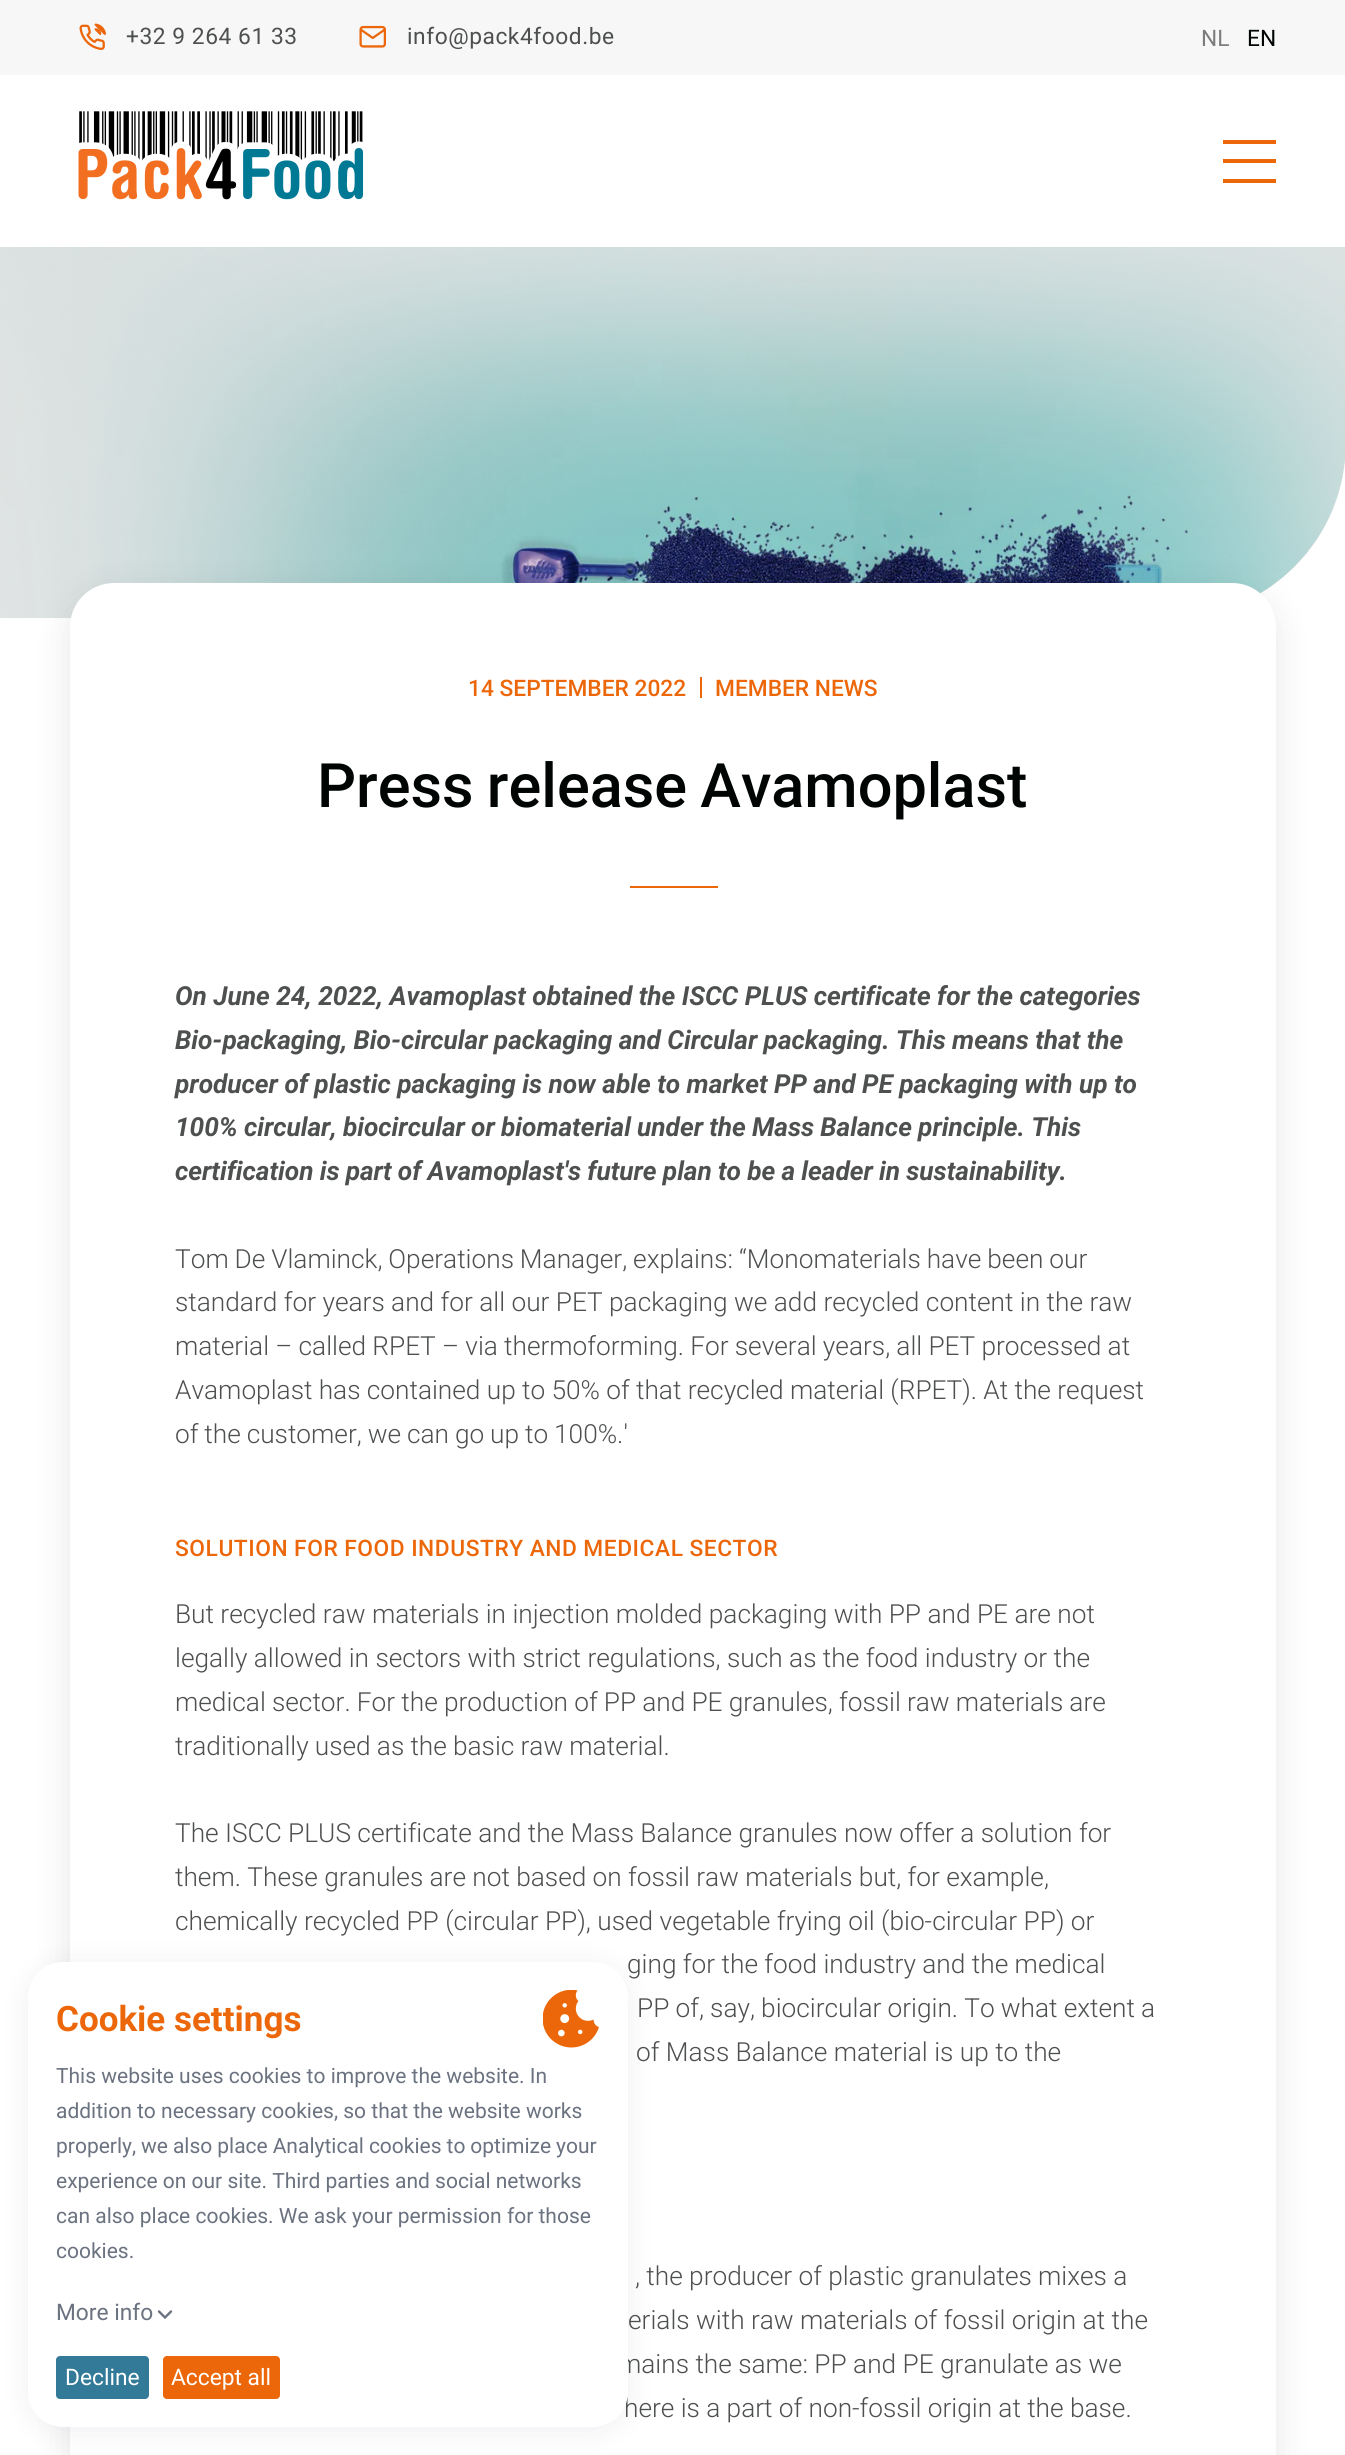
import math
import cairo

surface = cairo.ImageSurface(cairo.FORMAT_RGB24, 1345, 2455)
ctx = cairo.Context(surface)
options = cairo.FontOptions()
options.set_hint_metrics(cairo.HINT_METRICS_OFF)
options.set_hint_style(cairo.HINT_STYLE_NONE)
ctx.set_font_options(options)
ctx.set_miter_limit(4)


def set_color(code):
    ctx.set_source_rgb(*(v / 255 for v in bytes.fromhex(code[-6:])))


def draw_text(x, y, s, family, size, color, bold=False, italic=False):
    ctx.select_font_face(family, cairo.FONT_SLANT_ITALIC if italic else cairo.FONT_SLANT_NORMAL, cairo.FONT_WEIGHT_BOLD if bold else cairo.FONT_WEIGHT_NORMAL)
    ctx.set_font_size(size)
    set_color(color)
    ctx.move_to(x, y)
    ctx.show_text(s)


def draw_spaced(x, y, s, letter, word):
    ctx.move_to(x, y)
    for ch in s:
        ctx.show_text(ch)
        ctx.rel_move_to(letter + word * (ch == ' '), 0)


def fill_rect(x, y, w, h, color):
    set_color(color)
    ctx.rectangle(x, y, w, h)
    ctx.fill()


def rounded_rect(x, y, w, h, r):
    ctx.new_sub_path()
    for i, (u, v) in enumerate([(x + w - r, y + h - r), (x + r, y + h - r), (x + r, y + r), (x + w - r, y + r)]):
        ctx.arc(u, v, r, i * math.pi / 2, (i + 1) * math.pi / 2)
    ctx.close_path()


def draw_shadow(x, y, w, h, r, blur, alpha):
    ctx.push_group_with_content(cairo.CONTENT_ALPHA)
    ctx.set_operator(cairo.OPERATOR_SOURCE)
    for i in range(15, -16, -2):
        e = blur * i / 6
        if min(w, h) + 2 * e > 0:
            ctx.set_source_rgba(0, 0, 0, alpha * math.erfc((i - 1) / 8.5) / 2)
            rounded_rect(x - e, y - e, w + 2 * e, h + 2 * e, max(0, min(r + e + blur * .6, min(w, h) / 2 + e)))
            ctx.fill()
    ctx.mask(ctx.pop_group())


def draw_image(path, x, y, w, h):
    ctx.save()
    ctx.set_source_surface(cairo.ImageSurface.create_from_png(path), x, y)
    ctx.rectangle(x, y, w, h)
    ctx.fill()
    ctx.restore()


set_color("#ffffff")
ctx.paint()
fill_rect(0, 0, 1345, 75, "#f7f7f7")
draw_image("assets/img1.png", 79, 23, 27, 27)
ctx.select_font_face("Roboto")
ctx.set_font_size(22.75)
set_color("#4d504f")
draw_spaced(126, 44, "+32 9 264 61 33", 0.55, 0)
draw_image("assets/img2.png", 359, 25, 27, 23)
draw_spaced(407, 44, "info@pack4food.be", 0.55, 0)
draw_text(1201, 46, "NL", "Roboto", 22.75, "#7c7e7d")
draw_text(1247, 46, "EN", "Roboto", 22.75, "#000503")
draw_image("assets/img3.png", 78, 111, 286, 89)
fill_rect(1223, 140, 53, 4, "#ec6709")
fill_rect(1223, 159, 53, 4, "#ec6709")
fill_rect(1223, 179, 53, 4, "#ec6709")
set_color("#e5e6e6")
ctx.new_path()
ctx.move_to(0, 247)
ctx.line_to(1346, 247)
ctx.line_to(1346, 443)
ctx.curve_to(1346, 539.5, 1267.5, 618, 1171, 618)
ctx.line_to(0, 618)
ctx.close_path()
ctx.fill()
draw_image("assets/img4.png", 0, 247, 1345, 371)
set_color("#000000")
draw_shadow(70, 592, 1206, 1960, 44, 17.5, 0.1)
set_color("#ffffff")
rounded_rect(70, 583, 1206, 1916, 44)
ctx.fill()
draw_text(468, 696, "14 SEPTEMBER 2022", "Roboto Medium", 22.75, "#ec6709")
fill_rect(700, 677, 2, 21, "#ec6709")
draw_text(715, 696, "MEMBER NEWS", "Roboto Medium", 22.75, "#ec6709")
ctx.set_font_size(61.25)
set_color("#000503")
draw_spaced(317, 807, "Press release Avamoplast", 0, -2)
fill_rect(630, 886, 88, 2, "#ec6709")
draw_text(175, 1005, "On June 24, 2022, Avamoplast obtained the ISCC PLUS certificate for the categories", "Roboto", 26.25, "#4d504f", bold=True, italic=True)
draw_spaced(175, 1049, "Bio-packaging, Bio-circular packaging and Circular packaging. This means that the", 0, -0.1)
draw_text(175, 1093, "producer of plastic packaging is now able to market PP and PE packaging with up to", "Roboto", 26.25, "#4d504f", bold=True, italic=True)
draw_spaced(175, 1136, "100% circular, biocircular or biomaterial under the Mass Balance principle. This", 0, -0.25)
draw_spaced(175, 1180, "certification is part of Avamoplast's future plan to be a leader in sustainability.", 0, -0.25)
ctx.select_font_face("Roboto Light")
draw_spaced(175, 1268, "Tom De Vlaminck, Operations Manager, explains: “Monomaterials have been our", 0, -0.5)
draw_text(175, 1311, "standard for years and for all our PET packaging we add recycled content in the raw", "Roboto Light", 26.25, "#4d504f")
draw_spaced(175, 1355, "material – called RPET – via thermoforming. For several years, all PET processed at", 0, -0.2)
draw_spaced(175, 1399, "Avamoplast has contained up to 50% of that recycled material (RPET). At the request", 0, -0.1)
draw_spaced(175, 1443, "of the customer, we can go up to 100%.'", 0, -0.5)
ctx.select_font_face("Roboto Medium")
ctx.set_font_size(22.75)
set_color("#ec6709")
draw_spaced(175, 1556, "SOLUTION FOR FOOD INDUSTRY AND MEDICAL SECTOR", 0.55, -0.25)
draw_text(175, 1623, "But recycled raw materials in injection molded packaging with PP and PE are not", "Roboto Light", 26.25, "#4d504f")
draw_text(175, 1667, "legally allowed in sectors with strict regulations, such as the food industry or the", "Roboto Light", 26.25, "#4d504f")
draw_spaced(175, 1711, "medical sector. For the production of PP and PE granules, fossil raw materials are", 0, -0.25)
draw_spaced(175, 1755, "traditionally used as the basic raw material.", 0, -0.25)
draw_text(175, 1842, "The ISCC PLUS certificate and the Mass Balance granules now offer a solution for", "Roboto Light", 26.25, "#4d504f")
draw_spaced(175, 1886, "them. These granules are not based on fossil raw materials but, for example,", 0, -0.1)
draw_text(175, 1930, "chemically recycled PP (circular PP), used vegetable frying oil (bio-circular PP) or", "Roboto Light", 26.25, "#4d504f")
draw_text(627, 1973, "ging for the food industry and the medical", "Roboto Light", 26.25, "#4d504f")
draw_spaced(637, 2017, "PP of, say, biocircular origin. To what extent a", 0, -0.25)
draw_text(636, 2061, "of Mass Balance material is up to the", "Roboto Light", 26.25, "#4d504f")
draw_spaced(635, 2285, ", the producer of plastic granulates mixes a", 0, -0.1)
draw_text(628, 2329, "erials with raw materials of fossil origin at the", "Roboto Light", 26.25, "#4d504f")
draw_text(618, 2373, "mains the same: PP and PE granulate as we", "Roboto Light", 26.25, "#4d504f")
draw_spaced(624, 2417, "here is a part of non-fossil origin at the base.", 0, -0.1)
set_color("#01013f")
draw_shadow(35, 1972, 586, 452, 28, 16.5, 0.1)
set_color("#ffffff")
rounded_rect(28, 1962, 600, 465, 35)
ctx.fill()
draw_text(56, 2031, "Cookie settings", "Roboto", 35, "#ec6709", bold=True)
draw_image("assets/img5.png", 543, 1990, 56, 58)
draw_text(56, 2083, "This website uses cookies to improve the website. In", "Roboto", 21, "#6b7280")
draw_text(56, 2118, "addition to necessary cookies, so that the website works", "Roboto", 21, "#6b7280")
draw_spaced(56, 2153, "properly, we also place Analytical cookies to optimize your", 0, -0.25)
draw_text(56, 2188, "experience on our site. Third parties and social networks", "Roboto", 21, "#6b7280")
draw_text(56, 2223, "can also place cookies. We ask your permission for those", "Roboto", 21, "#6b7280")
draw_text(56, 2258, "cookies.", "Roboto", 21, "#6b7280")
draw_text(56, 2320, "More info", "Roboto", 22.75, "#6b7280")
ctx.new_path()
ctx.move_to(159, 2311.5)
ctx.line_to(165, 2317.5)
ctx.line_to(171, 2311.5)
ctx.set_line_width(2.4)
ctx.set_line_cap(cairo.LINE_CAP_ROUND)
ctx.stroke()
set_color("#337a99")
rounded_rect(56, 2356, 93, 43, 4)
ctx.fill()
draw_text(65, 2385, "Decline", "Roboto", 22.75, "#ffffff")
set_color("#ec6709")
rounded_rect(163, 2356, 117, 43, 4)
ctx.fill()
draw_text(171, 2385, "Accept all", "Roboto", 22.75, "#ffffff")
surface.write_to_png("output.png")
